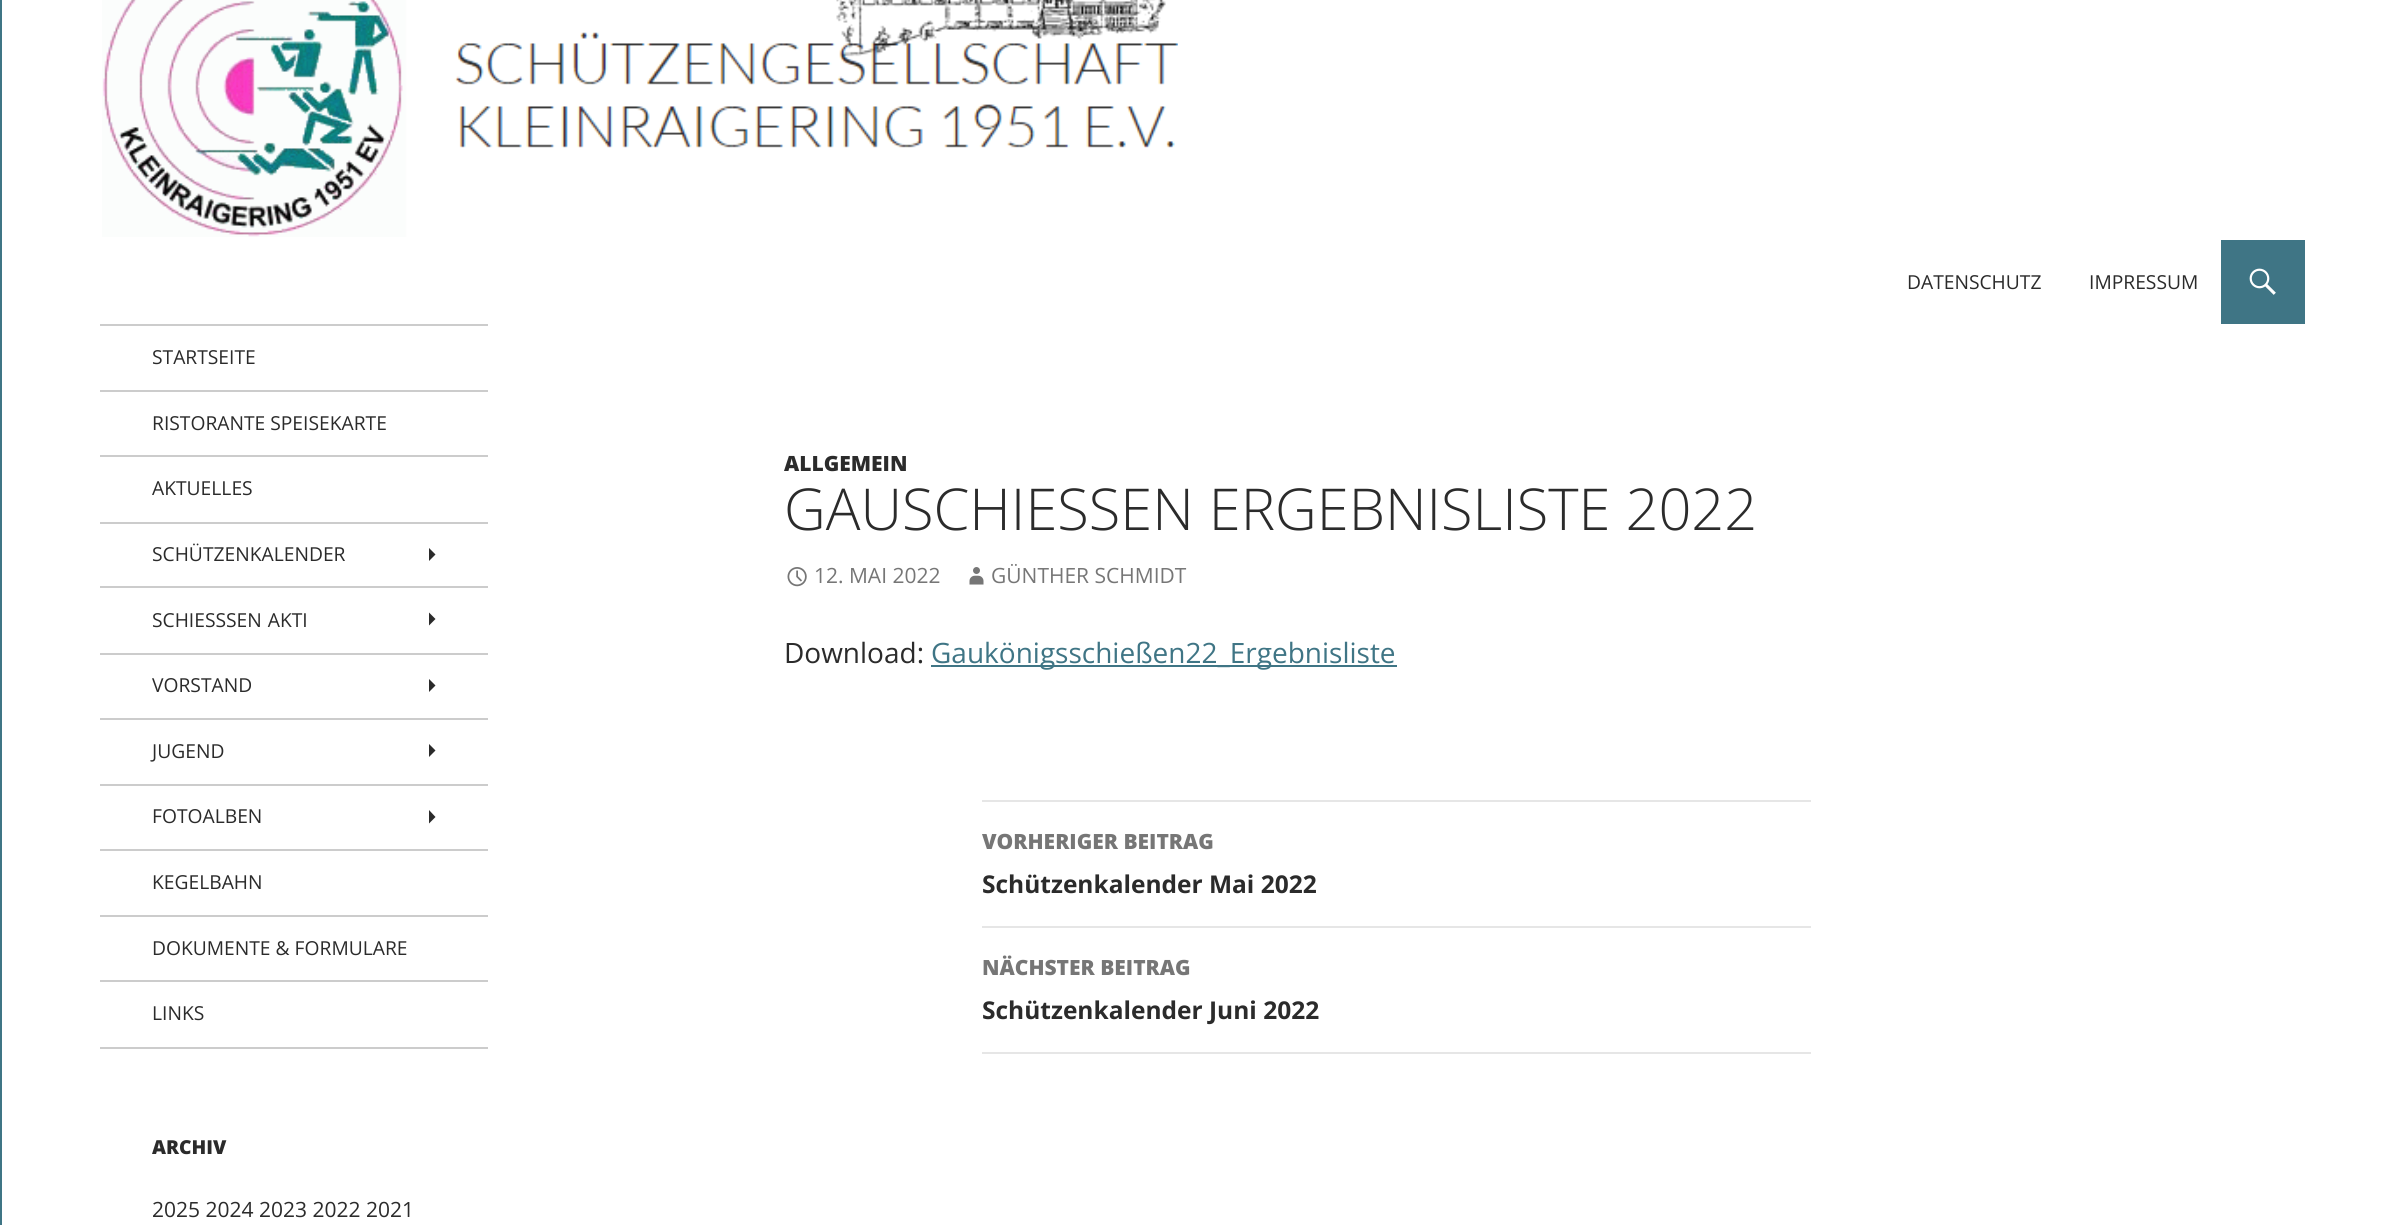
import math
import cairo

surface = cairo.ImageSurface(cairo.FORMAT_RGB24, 2402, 1225)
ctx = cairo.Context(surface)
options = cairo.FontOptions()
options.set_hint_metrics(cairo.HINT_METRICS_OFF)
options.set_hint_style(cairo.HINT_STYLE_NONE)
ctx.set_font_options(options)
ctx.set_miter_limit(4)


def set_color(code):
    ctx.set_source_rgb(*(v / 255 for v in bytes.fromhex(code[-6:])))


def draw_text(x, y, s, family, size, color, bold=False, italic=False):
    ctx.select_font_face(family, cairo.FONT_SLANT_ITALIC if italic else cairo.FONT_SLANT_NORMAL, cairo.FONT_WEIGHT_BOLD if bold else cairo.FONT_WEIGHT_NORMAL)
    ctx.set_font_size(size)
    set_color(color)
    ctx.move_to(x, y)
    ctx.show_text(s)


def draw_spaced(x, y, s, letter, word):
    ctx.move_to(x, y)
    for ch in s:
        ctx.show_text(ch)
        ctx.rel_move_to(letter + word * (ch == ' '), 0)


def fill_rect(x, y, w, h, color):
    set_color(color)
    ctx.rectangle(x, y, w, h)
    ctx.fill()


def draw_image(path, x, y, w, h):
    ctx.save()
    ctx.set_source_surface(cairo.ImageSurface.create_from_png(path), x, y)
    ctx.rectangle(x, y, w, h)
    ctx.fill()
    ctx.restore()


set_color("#ffffff")
ctx.paint()
fill_rect(0, 0, 2, 1225, "#3f7585")
draw_image("assets/img1.png", 102, 0, 1076, 237)
draw_text(1907, 289, "DATENSCHUTZ", "Open Sans", 19.25, "#2b2b2b")
draw_text(2089, 289, "IMPRESSUM", "Open Sans", 19.25, "#2b2b2b")
fill_rect(2221, 240, 84, 84, "#3f7585")
draw_image("assets/img2.png", 2249, 268, 27, 27)
fill_rect(100, 1047, 388, 2, "#cccccc")
fill_rect(100, 324, 388, 2, "#cccccc")
draw_text(152, 364, "STARTSEITE", "Open Sans", 19.25, "#2b2b2b")
fill_rect(100, 390, 388, 2, "#cccccc")
draw_text(152, 430, "RISTORANTE SPEISEKARTE", "Open Sans", 19.25, "#2b2b2b")
fill_rect(100, 455, 388, 2, "#cccccc")
draw_text(152, 495, "AKTUELLES", "Open Sans", 19.25, "#2b2b2b")
fill_rect(100, 522, 388, 2, "#cccccc")
draw_text(152, 561, "SCHÜTZENKALENDER", "Open Sans", 19.25, "#2b2b2b")
ctx.new_path()
ctx.move_to(429, 561)
ctx.line_to(435.5, 554.5)
ctx.line_to(429, 548)
ctx.close_path()
ctx.fill()
fill_rect(100, 586, 388, 2, "#cccccc")
draw_text(152, 627, "SCHIESS", "Open Sans", 19.25, "#2b2b2b")
draw_spaced(226, 627, "SEN AKTI", 0, 1)
ctx.new_path()
ctx.move_to(429, 625.5)
ctx.line_to(435.5, 619)
ctx.line_to(429, 612.5)
ctx.close_path()
ctx.fill()
fill_rect(100, 653, 388, 2, "#cccccc")
draw_text(152, 692, "VORSTAND", "Open Sans", 19.25, "#2b2b2b")
ctx.new_path()
ctx.move_to(429, 692)
ctx.line_to(435.5, 685.5)
ctx.line_to(429, 679)
ctx.close_path()
ctx.fill()
fill_rect(100, 718, 388, 2, "#cccccc")
draw_text(152, 758, "JUGEND", "Open Sans", 19.25, "#2b2b2b")
ctx.new_path()
ctx.move_to(429, 757)
ctx.line_to(435.5, 750.5)
ctx.line_to(429, 744)
ctx.close_path()
ctx.fill()
fill_rect(100, 784, 388, 2, "#cccccc")
draw_text(152, 823, "FOTOALBEN", "Open Sans", 19.25, "#2b2b2b")
ctx.new_path()
ctx.move_to(429, 823.5)
ctx.line_to(435.5, 817)
ctx.line_to(429, 810)
ctx.close_path()
ctx.fill()
fill_rect(100, 849, 388, 2, "#cccccc")
draw_text(152, 889, "KEGELBAHN", "Open Sans", 19.25, "#2b2b2b")
fill_rect(100, 915, 388, 2, "#cccccc")
draw_text(152, 955, "DOKUMENTE & FORMULARE", "Open Sans", 19.25, "#2b2b2b")
fill_rect(100, 980, 388, 2, "#cccccc")
draw_text(152, 1020, "LINKS", "Open Sans", 19.25, "#2b2b2b")
draw_text(152, 1154, "ARCHIV", "Open Sans ExtraBold", 19.25, "#2b2b2b")
draw_text(152, 1217, "2025 2024 2023 2022 2021", "Open Sans", 21, "#2b2b2b")
draw_text(784, 471, "ALLGEMEIN", "Open Sans ExtraBold", 21, "#2b2b2b")
draw_text(784, 530, "GAUSCHIESSEN ERGEBNISLISTE 2022", "Open Sans Light", 57.75, "#2b2b2b")
draw_image("assets/img3.png", 787, 567, 20, 20)
draw_text(814, 583, "12. MAI 2022", "Open Sans", 21, "#767676")
draw_image("assets/img4.png", 969, 567, 15, 18)
draw_text(991, 583, "GÜNTHER SCHMIDT", "Open Sans", 21, "#767676")
draw_text(784, 663, "Download:", "Open Sans", 28, "#2b2b2b")
fill_rect(931, 665, 466, 2, "#3f7585")
draw_text(931, 663, "Gaukönigsschießen22_Ergebnisliste", "Open Sans", 28, "#3f7585")
fill_rect(982, 800, 829, 2, "#e6e6e6")
fill_rect(982, 926, 829, 2, "#e6e6e6")
draw_text(982, 849, "VORHERIGER BEITRAG", "Open Sans ExtraBold", 21, "#767676")
draw_text(982, 893, "Schützenkalender Mai 2022", "Open Sans", 24.5, "#2b2b2b", bold=True)
fill_rect(982, 1052, 829, 2, "#e6e6e6")
draw_text(982, 975, "NÄCHSTER BEITRAG", "Open Sans ExtraBold", 21, "#767676")
draw_text(982, 1019, "Schützenkalender Juni 2022", "Open Sans", 24.5, "#2b2b2b", bold=True)
surface.write_to_png("output.png")
